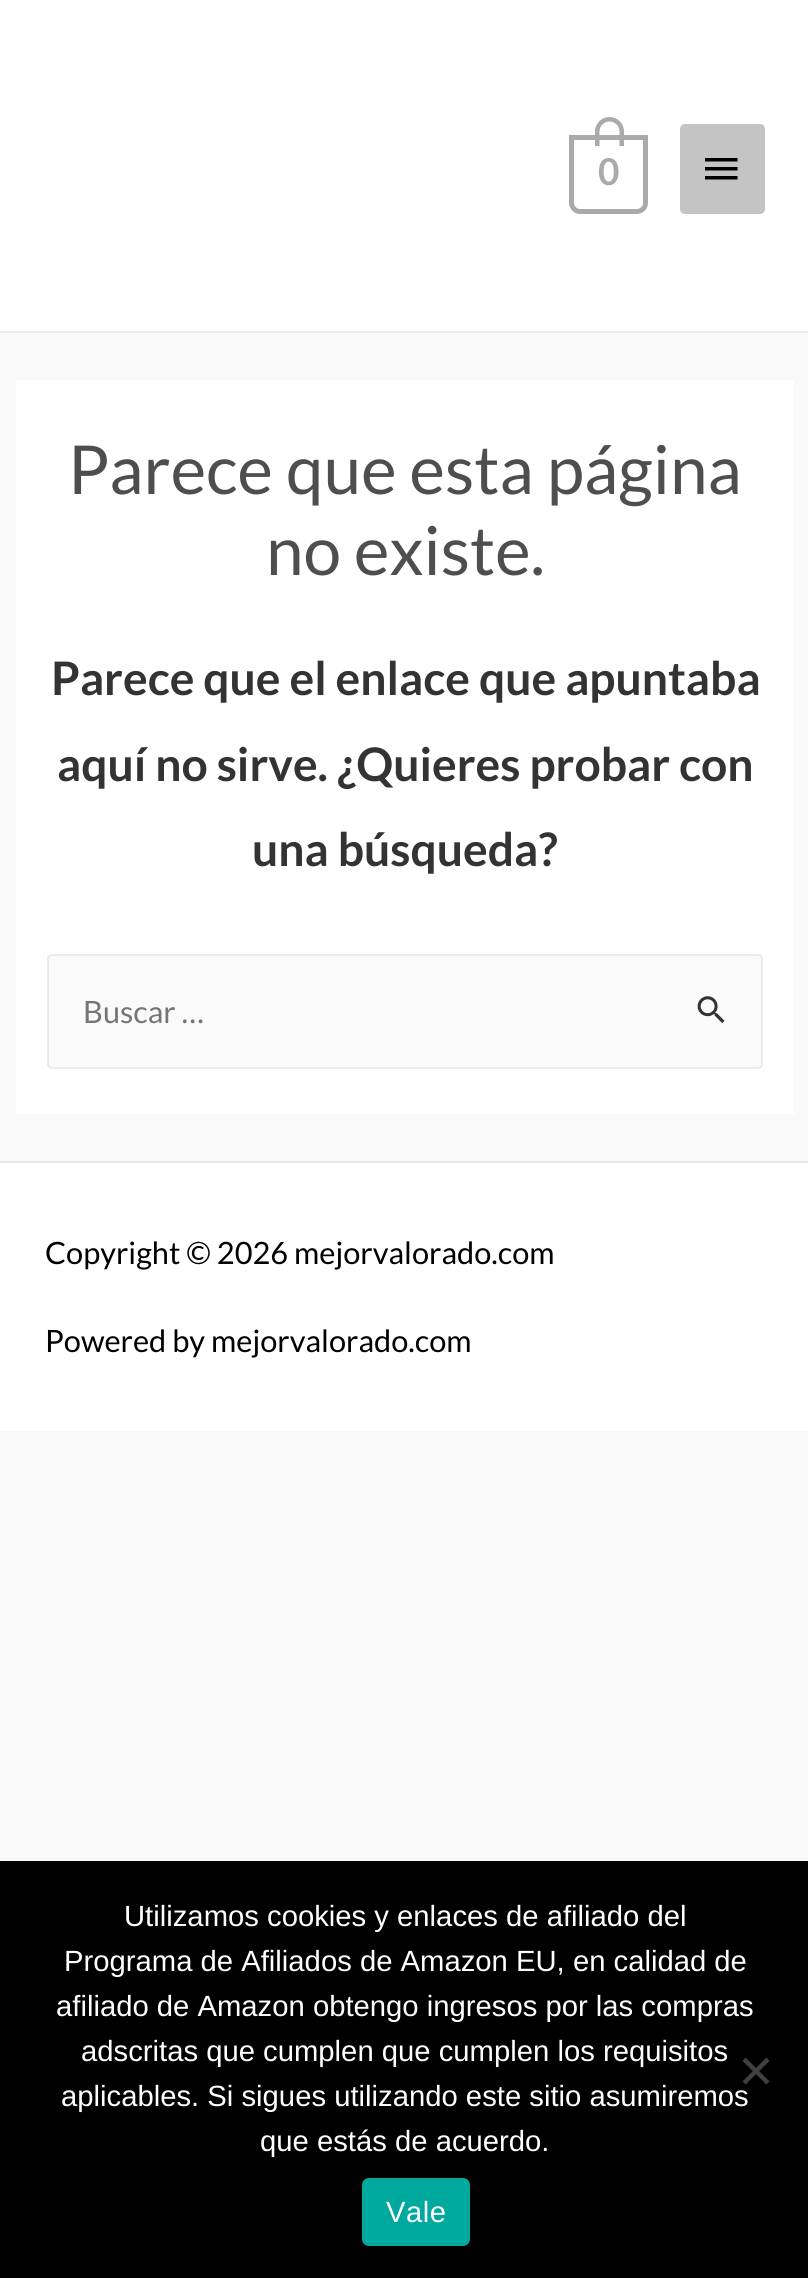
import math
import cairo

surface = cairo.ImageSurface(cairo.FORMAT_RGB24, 808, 2278)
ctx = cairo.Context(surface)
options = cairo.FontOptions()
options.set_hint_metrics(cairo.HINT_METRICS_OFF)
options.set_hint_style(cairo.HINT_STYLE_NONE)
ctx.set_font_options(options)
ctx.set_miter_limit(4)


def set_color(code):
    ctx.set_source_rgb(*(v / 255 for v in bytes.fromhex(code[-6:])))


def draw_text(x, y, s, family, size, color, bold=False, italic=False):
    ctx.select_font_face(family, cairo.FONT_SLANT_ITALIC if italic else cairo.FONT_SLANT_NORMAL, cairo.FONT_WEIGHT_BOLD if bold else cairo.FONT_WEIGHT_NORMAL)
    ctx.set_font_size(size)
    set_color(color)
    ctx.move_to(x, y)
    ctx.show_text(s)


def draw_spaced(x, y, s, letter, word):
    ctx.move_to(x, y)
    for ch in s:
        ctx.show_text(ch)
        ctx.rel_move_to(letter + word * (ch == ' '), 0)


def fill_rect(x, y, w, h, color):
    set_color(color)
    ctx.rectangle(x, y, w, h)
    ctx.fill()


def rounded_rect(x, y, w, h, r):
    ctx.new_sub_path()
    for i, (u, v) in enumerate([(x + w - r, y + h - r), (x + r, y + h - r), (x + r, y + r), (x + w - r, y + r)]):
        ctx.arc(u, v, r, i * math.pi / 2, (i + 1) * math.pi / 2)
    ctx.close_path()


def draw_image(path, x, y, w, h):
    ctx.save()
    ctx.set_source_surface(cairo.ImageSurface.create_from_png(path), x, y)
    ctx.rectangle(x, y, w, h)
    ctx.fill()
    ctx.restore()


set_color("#f9f9f9")
ctx.paint()
fill_rect(0, 0, 808, 331, "#ffffff")
fill_rect(0, 331, 808, 2, "#eaeaea")
ctx.new_path()
ctx.move_to(571.5, 137.5)
ctx.line_to(645.5, 137.5)
ctx.line_to(645.5, 203)
ctx.curve_to(645.5, 207.5, 641.5, 211.5, 637, 211.5)
ctx.line_to(580, 211.5)
ctx.curve_to(575.5, 211.5, 571.5, 207.5, 571.5, 203)
ctx.close_path()
set_color("#aaaaaa")
ctx.set_line_width(5)
ctx.stroke()
ctx.set_fill_rule(cairo.FILL_RULE_EVEN_ODD)
ctx.new_path()
ctx.move_to(609.5, 117)
ctx.curve_to(617.5, 117, 624, 123.5, 624, 131.5)
ctx.line_to(624, 146)
ctx.line_to(595, 146)
ctx.line_to(595, 131.5)
ctx.curve_to(595, 123.5, 601.5, 117, 609.5, 117)
ctx.close_path()
ctx.move_to(609.5, 121.5)
ctx.curve_to(615, 121.5, 619.5, 126, 619.5, 131.5)
ctx.line_to(619.5, 146)
ctx.line_to(599.5, 146)
ctx.line_to(599.5, 131.5)
ctx.curve_to(599.5, 126, 604, 121.5, 609.5, 121.5)
ctx.close_path()
ctx.fill()
draw_text(598, 185, "0", "Lato", 37, "#aaaaaa", bold=True)
set_color("#c4c4c4")
rounded_rect(680, 124, 85, 90, 5)
ctx.fill()
set_color("#000000")
ctx.set_fill_rule(cairo.FILL_RULE_WINDING)
ctx.new_path()
ctx.move_to(705, 158)
ctx.line_to(737.5, 158)
ctx.line_to(737.5, 161.5)
ctx.line_to(705, 161.5)
ctx.close_path()
ctx.move_to(705, 170.5)
ctx.line_to(705, 167)
ctx.line_to(737.5, 167)
ctx.line_to(737.5, 170.5)
ctx.close_path()
ctx.move_to(705, 179.5)
ctx.line_to(705, 176)
ctx.line_to(737.5, 176)
ctx.line_to(737.5, 179.5)
ctx.close_path()
ctx.fill()
fill_rect(16, 380, 778, 734, "#ffffff")
draw_text(68, 494, "Parece que esta página", "Lato", 67.5, "#4e4e4e")
draw_text(266, 575, "no existe.", "Lato", 67.5, "#4e4e4e")
draw_text(51, 695, "Parece que el enlace que apuntaba", "Lato", 46.2, "#333333", bold=True)
draw_text(57, 781, "aquí no sirve. ¿Quieres probar con", "Lato", 46.2, "#333333", bold=True)
draw_text(252, 866, "una búsqueda?", "Lato", 46.2, "#333333", bold=True)
set_color("#fafafa")
rounded_rect(48, 955, 714, 113, 4)
ctx.fill_preserve()
set_color("#eaeaea")
ctx.set_line_width(2)
ctx.stroke()
draw_text(83, 1023, "Buscar …", "Lato", 30.75, "#757575")
draw_image("assets/img1.png", 697, 996, 28, 27)
fill_rect(0, 1161, 808, 2, "#e8e8e8")
fill_rect(0, 1163, 808, 268, "#ffffff")
draw_text(45, 1264, "Copyright © 2026 mejorvalorado.com", "Lato", 30.75, "#000000")
draw_text(45, 1352, "Powered by mejorvalorado.com", "Lato", 30.75, "#000000")
fill_rect(0, 1861, 808, 417, "#000000")
draw_text(124, 1926, "Utilizamos cookies y enlaces de afiliado del", "Liberation Sans", 29.25, "#ffffff")
draw_text(64, 1971, "Programa de Afiliados de Amazon EU, en calidad de", "Liberation Sans", 29.25, "#ffffff")
draw_text(56, 2016, "afiliado de Amazon obtengo ingresos por las compras", "Liberation Sans", 29.25, "#ffffff")
draw_text(81, 2061, "adscritas que cumplen que cumplen los requisitos", "Liberation Sans", 29.25, "#ffffff")
draw_text(61, 2106, "aplicables. Si sigues utilizando este sitio asumiremos", "Liberation Sans", 29.25, "#ffffff")
draw_text(260, 2151, "que estás de acuerdo.", "Liberation Sans", 29.25, "#ffffff")
set_color("#404040")
ctx.new_path()
ctx.move_to(766.5, 2057.5)
ctx.line_to(769.5, 2061)
ctx.line_to(745.5, 2084.5)
ctx.line_to(742.5, 2081.5)
ctx.close_path()
ctx.fill()
ctx.new_path()
ctx.move_to(742.5, 2061)
ctx.line_to(745.5, 2057.5)
ctx.line_to(769.5, 2081.5)
ctx.line_to(766.5, 2084.5)
ctx.close_path()
ctx.fill()
set_color("#00a99d")
rounded_rect(362, 2178, 108, 68, 7)
ctx.fill()
set_color("#ffffff")
draw_spaced(386, 2222, "Vale", 0.5, 0)
surface.write_to_png("output.png")
